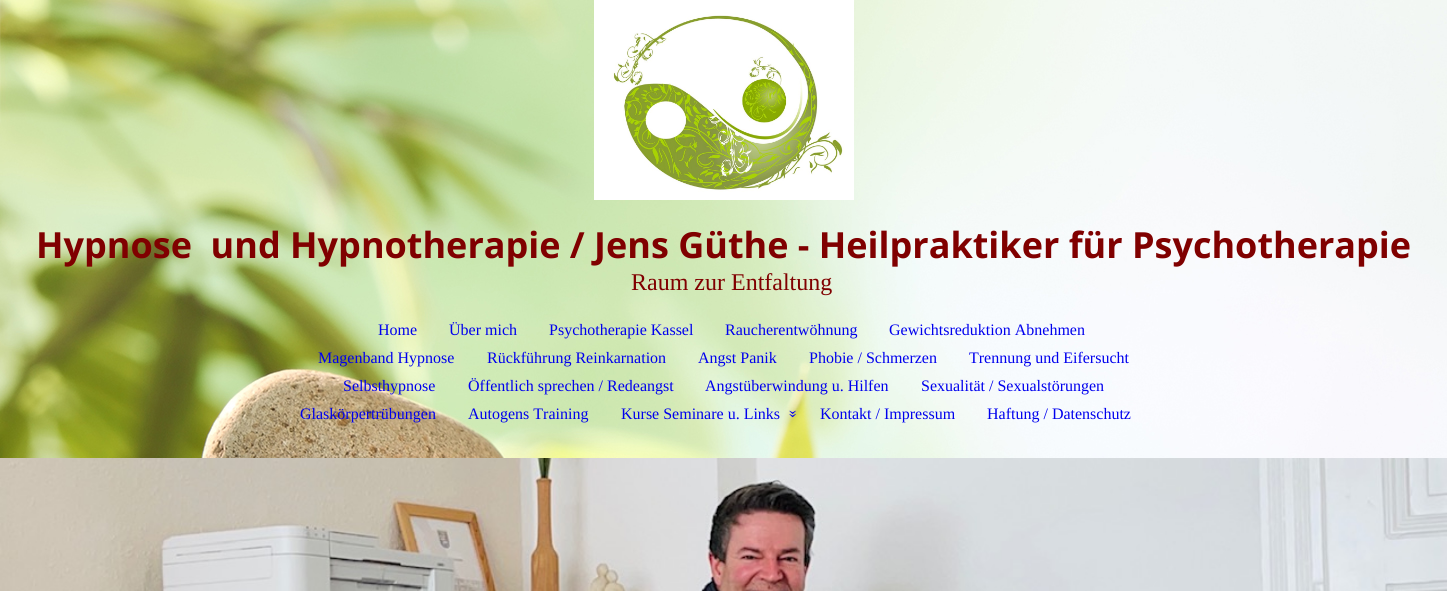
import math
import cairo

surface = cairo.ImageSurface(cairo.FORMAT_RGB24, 1447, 591)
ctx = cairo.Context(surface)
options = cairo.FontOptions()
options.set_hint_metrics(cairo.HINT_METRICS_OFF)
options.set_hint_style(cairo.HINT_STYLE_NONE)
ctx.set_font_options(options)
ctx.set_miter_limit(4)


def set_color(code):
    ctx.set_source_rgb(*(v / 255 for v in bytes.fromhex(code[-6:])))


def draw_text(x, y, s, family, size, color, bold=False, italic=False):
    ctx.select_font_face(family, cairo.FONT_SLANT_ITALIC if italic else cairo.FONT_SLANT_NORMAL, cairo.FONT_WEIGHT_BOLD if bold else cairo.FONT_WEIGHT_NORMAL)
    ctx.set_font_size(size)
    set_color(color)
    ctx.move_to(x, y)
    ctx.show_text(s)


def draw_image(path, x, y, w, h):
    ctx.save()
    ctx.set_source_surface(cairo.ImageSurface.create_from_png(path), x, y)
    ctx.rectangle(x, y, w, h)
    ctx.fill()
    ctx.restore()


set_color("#ffffff")
ctx.paint()
draw_image("assets/img1.png", 0, 0, 1447, 458)
draw_image("assets/img2.png", 594, 0, 260, 200)
draw_text(36, 258, "Hypnose  und Hypnotherapie / Jens Güthe - Heilpraktiker für Psychotherapie", "Open Sans", 36, "#800000", bold=True)
draw_text(631, 290, "Raum zur Entfaltung", "Liberation Serif", 24, "#800000")
draw_text(378, 335, "Home", "Liberation Serif", 16, "#0000ee")
draw_text(449, 335, "Über mich", "Liberation Serif", 16, "#0000ee")
draw_text(549, 335, "Psychotherapie Kassel", "Liberation Serif", 16, "#0000ee")
draw_text(725, 335, "Raucherentwöhnung", "Liberation Serif", 16, "#0000ee")
draw_text(889, 335, "Gewichtsreduktion Abnehmen", "Liberation Serif", 16, "#0000ee")
draw_text(318, 363, "Magenband Hypnose", "Liberation Serif", 16, "#0000ee")
draw_text(487, 363, "Rückführung Reinkarnation", "Liberation Serif", 16, "#0000ee")
draw_text(698, 363, "Angst Panik", "Liberation Serif", 16, "#0000ee")
draw_text(809, 363, "Phobie / Schmerzen", "Liberation Serif", 16, "#0000ee")
draw_text(969, 363, "Trennung und Eifersucht", "Liberation Serif", 16, "#0000ee")
draw_text(343, 391, "Selbsthypnose", "Liberation Serif", 16, "#0000ee")
draw_text(468, 391, "Öffentlich sprechen / Redeangst", "Liberation Serif", 16, "#0000ee")
draw_text(705, 391, "Angstüberwindung u. Hilfen", "Liberation Serif", 16, "#0000ee")
draw_text(921, 391, "Sexualität / Sexualstörungen", "Liberation Serif", 16, "#0000ee")
draw_text(300, 419, "Glaskörpertrübungen", "Liberation Serif", 16, "#0000ee")
draw_text(468, 419, "Autogens Training", "Liberation Serif", 16, "#0000ee")
draw_text(621, 419, "Kurse Seminare u. Links", "Liberation Serif", 16, "#0000ee")
ctx.save()
ctx.translate(789, 410)
ctx.rotate(90 * math.pi / 180)
draw_text(0, 0, "»", "Liberation Serif", 16, "#0000ee")
ctx.restore()
draw_text(820, 419, "Kontakt / Impressum", "Liberation Serif", 16, "#0000ee")
draw_text(987, 419, "Haftung / Datenschutz", "Liberation Serif", 16, "#0000ee")
draw_image("assets/img3.png", 0, 458, 1447, 133)
surface.write_to_png("output.png")
